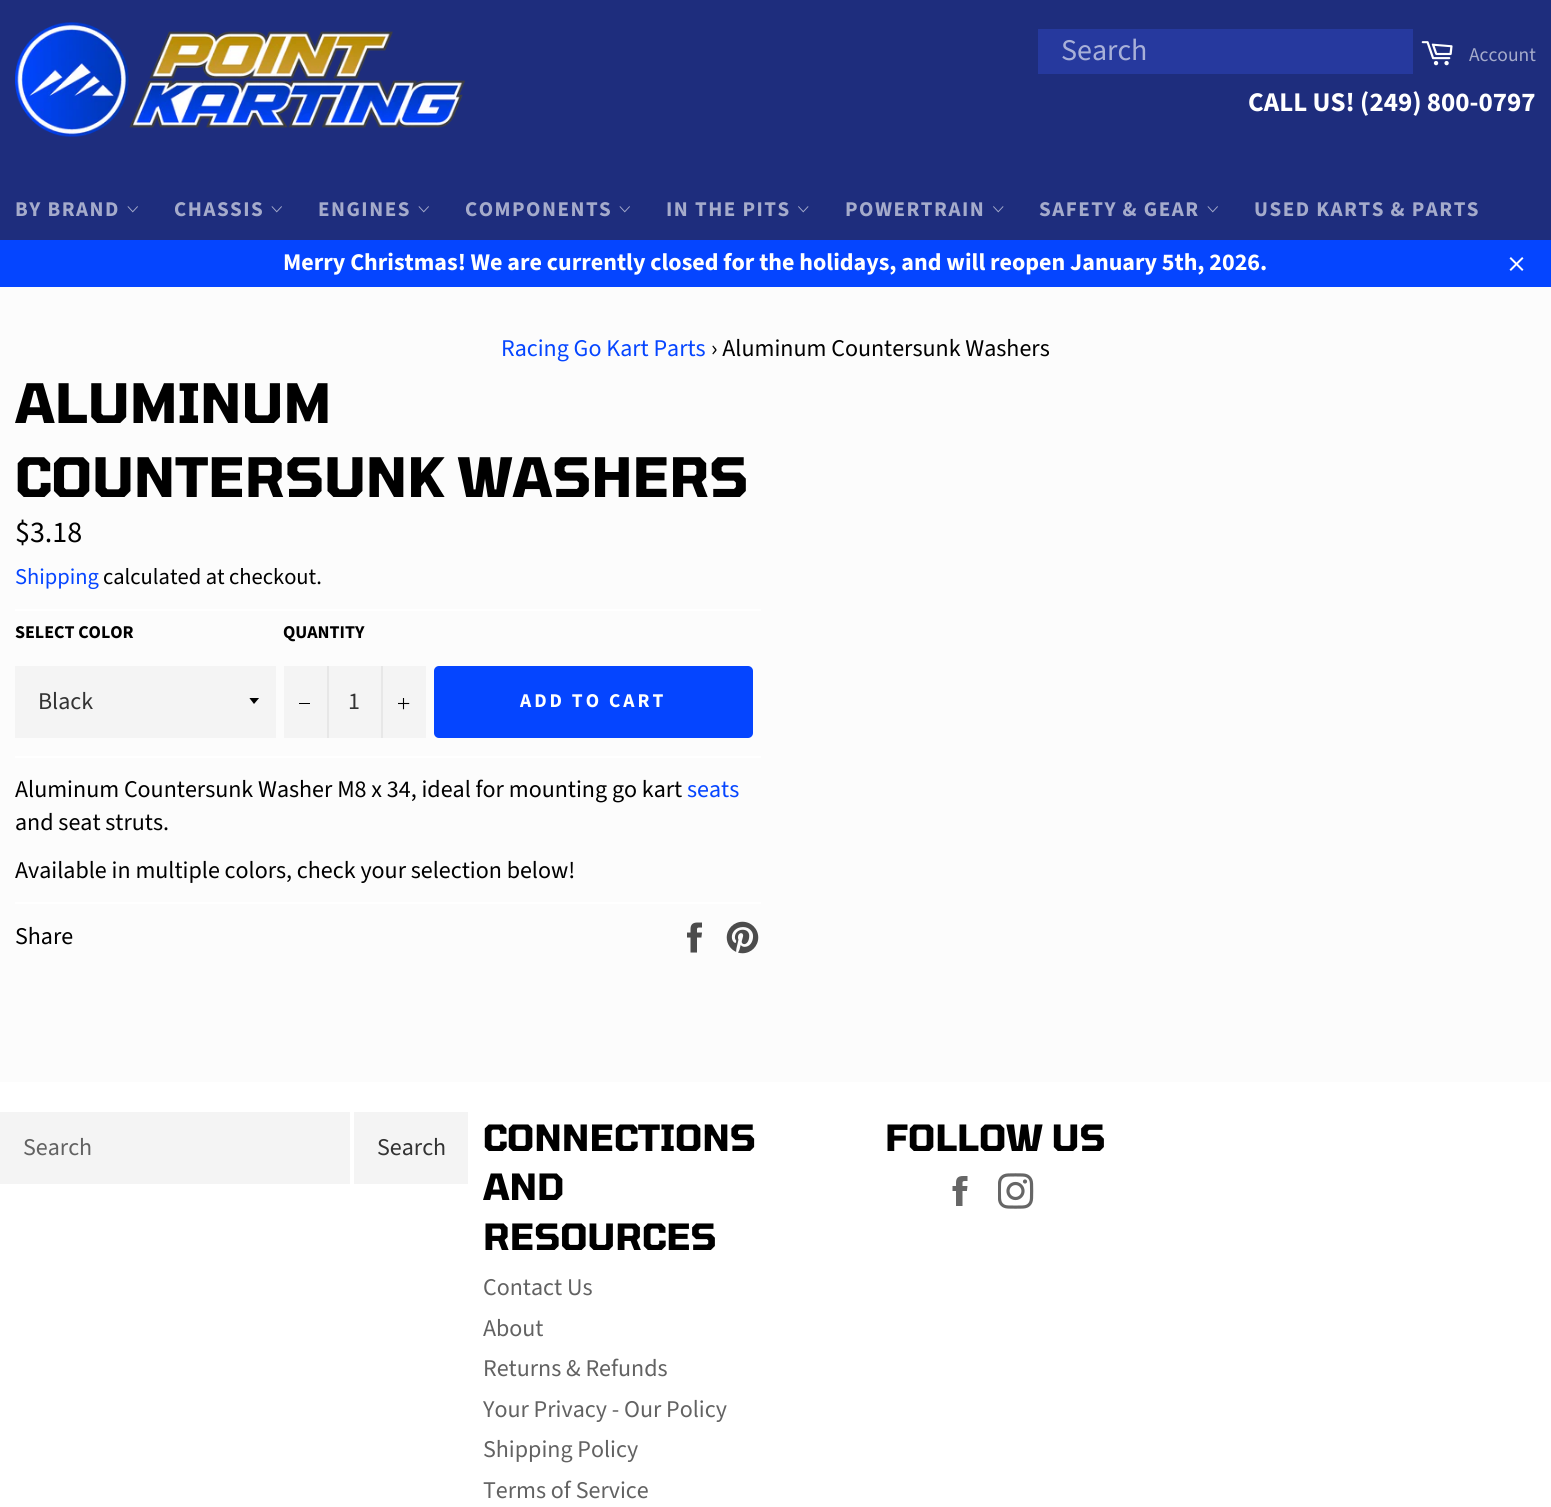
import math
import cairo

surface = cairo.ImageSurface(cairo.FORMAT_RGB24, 1551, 1507)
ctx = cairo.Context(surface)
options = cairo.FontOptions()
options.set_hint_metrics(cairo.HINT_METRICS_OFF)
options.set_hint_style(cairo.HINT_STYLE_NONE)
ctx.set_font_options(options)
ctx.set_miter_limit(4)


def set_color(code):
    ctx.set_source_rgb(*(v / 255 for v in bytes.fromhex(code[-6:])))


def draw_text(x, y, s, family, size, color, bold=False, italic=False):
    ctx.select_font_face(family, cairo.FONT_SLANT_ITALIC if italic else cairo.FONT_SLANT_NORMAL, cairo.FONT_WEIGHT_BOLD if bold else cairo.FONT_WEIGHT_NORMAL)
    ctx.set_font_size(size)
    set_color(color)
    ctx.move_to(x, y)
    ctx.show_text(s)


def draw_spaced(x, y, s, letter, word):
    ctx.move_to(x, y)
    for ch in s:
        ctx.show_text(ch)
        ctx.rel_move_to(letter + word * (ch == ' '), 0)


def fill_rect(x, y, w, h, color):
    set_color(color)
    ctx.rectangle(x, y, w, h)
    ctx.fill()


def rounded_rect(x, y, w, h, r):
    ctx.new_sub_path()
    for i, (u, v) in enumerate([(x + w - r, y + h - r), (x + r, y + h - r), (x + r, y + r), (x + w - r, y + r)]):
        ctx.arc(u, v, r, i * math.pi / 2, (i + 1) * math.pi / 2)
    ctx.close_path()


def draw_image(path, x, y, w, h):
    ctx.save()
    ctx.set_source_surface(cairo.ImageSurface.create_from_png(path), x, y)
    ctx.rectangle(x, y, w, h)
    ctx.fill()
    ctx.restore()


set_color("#1e2d7d")
ctx.paint()
draw_image("assets/img1.png", 15, 22, 450, 115)
fill_rect(1038, 29, 375, 45, "#26399e")
draw_text(1061, 60, "Search", "Source Sans Pro", 30, "#a8b0d8")
draw_image("assets/img2.png", 1421, 41, 32, 25)
draw_text(1469, 61, "Account", "Source Sans Pro", 19.5, "#a5abcb")
draw_text(1248, 111, "CALL US! (249) 800-0797", "Source Sans Pro", 27, "#ffffff", bold=True)
ctx.set_font_size(21)
set_color("#a5abcb")
draw_spaced(15, 216, "BY BRAND", 1.5, 0)
draw_image("assets/img3.png", 127, 206, 11, 7)
draw_spaced(174, 216, "CHASSIS", 1.5, 0)
draw_image("assets/img3.png", 271, 206, 11, 7)
draw_spaced(318, 216, "ENGINES", 1.5, 0)
draw_image("assets/img3.png", 418, 206, 11, 7)
draw_spaced(465, 216, "COMPONENTS", 1.5, 0)
draw_image("assets/img3.png", 619, 206, 11, 7)
draw_spaced(666, 216, "IN THE PITS", 1.5, 0)
draw_image("assets/img4.png", 798, 206, 11, 7)
draw_spaced(845, 216, "POWERTRAIN", 1.5, 0)
draw_image("assets/img4.png", 993, 206, 11, 7)
draw_spaced(1039, 216, "SAFETY & GEAR", 1.5, 0)
draw_image("assets/img3.png", 1207, 206, 11, 7)
draw_spaced(1254, 216, "USED KARTS & PARTS", 1.5, 0)
fill_rect(0, 240, 1551, 47, "#0545ff")
draw_text(283, 270, "Merry Christmas! We are currently closed for the holidays, and will reopen January 5th, 2026.", "Source Sans Pro", 24, "#ffffff", bold=True)
draw_image("assets/img5.png", 1509, 257, 15, 14)
fill_rect(0, 287, 1551, 795, "#fcfcfc")
draw_text(501, 356, "Racing Go Kart Parts", "Source Sans Pro", 24, "#0545ff")
draw_text(711, 356, "› Aluminum Countersunk Washers", "Source Sans Pro", 24, "#000000")
draw_text(15, 423, "ALUMINUM", "Tomorrow", 54, "#000000", bold=True)
draw_text(15, 497, "COUNTERSUNK WASHERS", "Tomorrow", 54, "#000000", bold=True)
draw_text(15, 542, "$3.18", "Source Sans Pro", 30, "#000000")
draw_text(15, 584, "Shipping", "Source Sans Pro", 22.5, "#0545ff")
draw_text(103, 584, "calculated at checkout.", "Source Sans Pro", 22.5, "#000000")
fill_rect(15, 609, 746, 2, "#ffffff")
draw_text(15, 638, "SELECT COLOR", "Source Sans Pro", 18, "#000000", bold=True)
fill_rect(15, 666, 261, 72, "#f4f4f4")
ctx.save()
ctx.rectangle(249, 698, 12, 7)
ctx.clip()
set_color("#000000")
ctx.new_path()
ctx.move_to(249, 697.5)
ctx.line_to(254, 704)
ctx.line_to(259.5, 697.5)
ctx.close_path()
ctx.fill()
ctx.restore()
draw_text(38, 709, "Black", "Source Sans Pro", 24, "#333333")
draw_text(283, 638, "QUANTITY", "Source Sans Pro", 18, "#000000", bold=True)
fill_rect(284, 666, 142, 72, "#f4f4f4")
fill_rect(327, 666, 2, 72, "#e7e7e7")
fill_rect(299, 703, 11, 1, "#000000")
draw_text(348, 709, "1", "Source Sans Pro", 24, "#333333")
fill_rect(381, 666, 2, 72, "#e7e7e7")
draw_image("assets/img6.png", 398, 698, 12, 12)
set_color("#0545ff")
rounded_rect(434, 666, 319, 72, 5)
ctx.fill()
ctx.select_font_face("Source Sans Pro", cairo.FONT_SLANT_NORMAL, cairo.FONT_WEIGHT_BOLD)
ctx.set_font_size(19.5)
set_color("#ffffff")
draw_spaced(520, 707, "ADD TO CART", 3, 0)
fill_rect(15, 756, 746, 2, "#ffffff")
draw_text(15, 797, "Aluminum Countersunk Washer M8 x 34, ideal for mounting go kart", "Source Sans Pro", 24, "#000000")
draw_text(687, 797, "seats", "Source Sans Pro", 24, "#0545ff")
draw_text(15, 830, "and seat struts.", "Source Sans Pro", 24, "#000000")
draw_text(15, 878, "Available in multiple colors, check your selection below!", "Source Sans Pro", 24, "#000000")
fill_rect(15, 902, 746, 2, "#ffffff")
draw_text(15, 944, "Share", "Source Sans Pro", 24, "#000000")
draw_image("assets/img7.png", 687, 922, 15, 31)
draw_image("assets/img8.png", 726, 921, 33, 33)
fill_rect(0, 1082, 1551, 425, "#ffffff")
fill_rect(0, 1112, 350, 72, "#f4f4f4")
draw_text(23, 1155, "Search", "Source Sans Pro", 24, "#626262")
fill_rect(354, 1112, 114, 72, "#f4f4f4")
draw_text(377, 1155, "Search", "Source Sans Pro", 24, "#333333")
draw_text(483, 1151, "CONNECTIONS", "Tomorrow", 36, "#000000", bold=True)
draw_text(483, 1200, "AND", "Tomorrow", 36, "#000000", bold=True)
draw_text(483, 1250, "RESOURCES", "Tomorrow", 36, "#000000", bold=True)
draw_text(483, 1295, "Contact Us", "Source Sans Pro", 24, "#626262")
draw_text(483, 1336, "About", "Source Sans Pro", 24, "#626262")
draw_text(483, 1376, "Returns & Refunds", "Source Sans Pro", 24, "#626262")
draw_text(483, 1417, "Your Privacy - Our Policy", "Source Sans Pro", 24, "#626262")
draw_text(483, 1457, "Shipping Policy", "Source Sans Pro", 24, "#626262")
draw_text(483, 1498, "Terms of Service", "Source Sans Pro", 24, "#626262")
draw_text(885, 1151, "FOLLOW US", "Tomorrow", 36, "#000000", bold=True)
draw_image("assets/img9.png", 952, 1176, 16, 30)
draw_image("assets/img10.png", 998, 1173, 36, 36)
surface.write_to_png("output.png")
